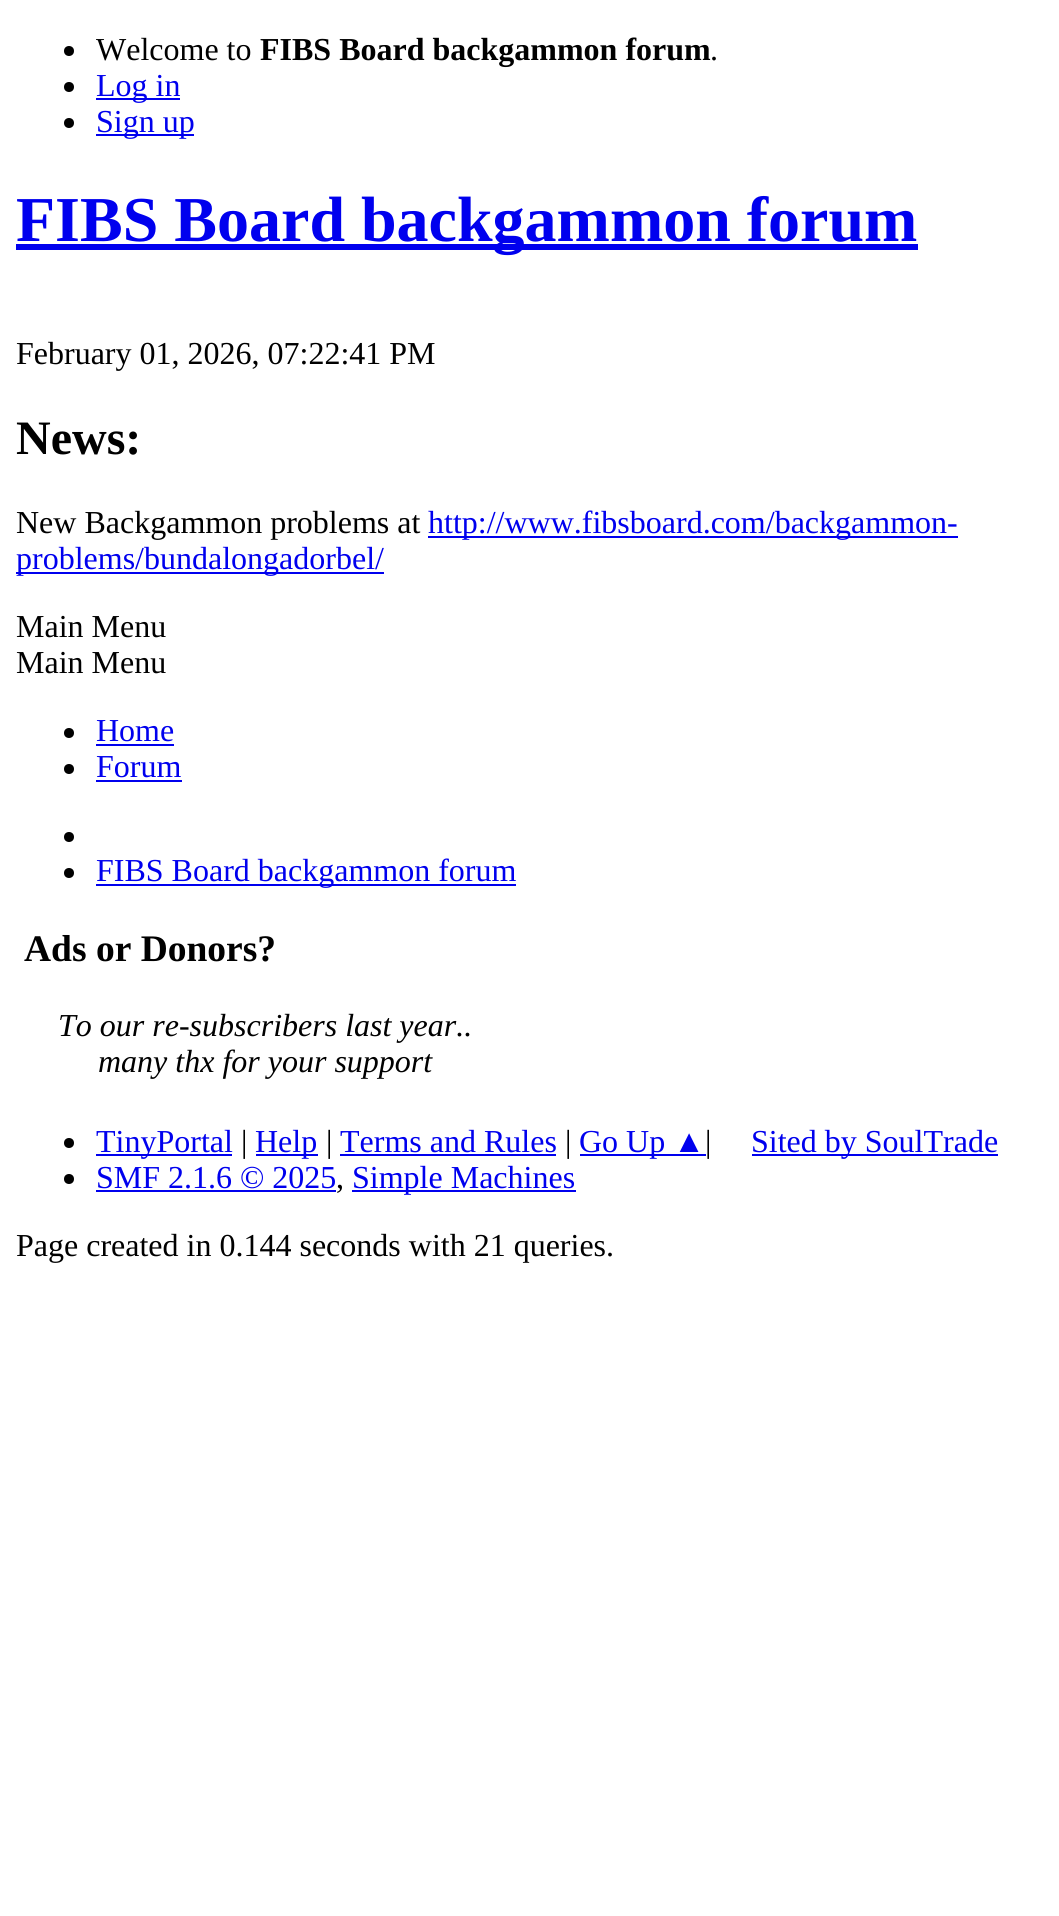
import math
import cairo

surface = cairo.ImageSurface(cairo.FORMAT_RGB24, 1059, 1916)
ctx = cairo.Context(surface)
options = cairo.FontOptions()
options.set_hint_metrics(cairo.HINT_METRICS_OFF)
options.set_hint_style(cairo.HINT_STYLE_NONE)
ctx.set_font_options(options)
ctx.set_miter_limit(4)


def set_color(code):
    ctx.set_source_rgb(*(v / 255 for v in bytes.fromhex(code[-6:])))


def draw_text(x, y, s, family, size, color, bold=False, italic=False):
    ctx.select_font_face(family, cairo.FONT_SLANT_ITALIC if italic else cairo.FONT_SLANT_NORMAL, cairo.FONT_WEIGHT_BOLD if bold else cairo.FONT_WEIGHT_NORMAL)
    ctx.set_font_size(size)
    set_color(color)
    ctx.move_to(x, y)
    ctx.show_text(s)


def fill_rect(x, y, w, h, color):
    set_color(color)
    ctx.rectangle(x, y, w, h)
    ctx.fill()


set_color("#ffffff")
ctx.paint()
set_color("#000000")
ctx.arc(69, 51, 5, 0, 2 * math.pi)
ctx.fill()
draw_text(96, 60, "Welcome to", "Liberation Serif", 32, "#000000")
draw_text(260, 60, "FIBS Board backgammon forum", "Liberation Serif", 32, "#000000", bold=True)
draw_text(710, 60, ".", "Liberation Serif", 32, "#000000")
ctx.new_path()
ctx.arc(69, 87, 5, 0, 2 * math.pi)
ctx.fill()
fill_rect(96, 98, 84, 2, "#0000ee")
draw_text(96, 96, "Log in", "Liberation Serif", 32, "#0000ee")
set_color("#000000")
ctx.new_path()
ctx.arc(69, 123, 5, 0, 2 * math.pi)
ctx.fill()
fill_rect(96, 134, 98, 2, "#0000ee")
draw_text(96, 132, "Sign up", "Liberation Serif", 32, "#0000ee")
fill_rect(16, 244, 902, 6, "#0000ee")
draw_text(16, 241, "FIBS Board backgammon forum", "Liberation Serif", 64, "#0000ee", bold=True)
draw_text(16, 364, "February 01, 2026, 07:22:41 PM", "Liberation Serif", 32, "#000000")
draw_text(16, 454, "News:", "Liberation Serif", 48, "#000000", bold=True)
draw_text(16, 533, "New Backgammon problems at", "Liberation Serif", 32, "#000000")
fill_rect(428, 536, 530, 2, "#0000ee")
draw_text(428, 533, "http://www.fibsboard.com/backgammon-", "Liberation Serif", 32, "#0000ee")
fill_rect(16, 572, 368, 2, "#0000ee")
draw_text(16, 569, "problems/bundalongadorbel/", "Liberation Serif", 32, "#0000ee")
draw_text(16, 637, "Main Menu", "Liberation Serif", 32, "#000000")
draw_text(16, 673, "Main Menu", "Liberation Serif", 32, "#000000")
ctx.new_path()
ctx.arc(69, 733, 5, 0, 2 * math.pi)
ctx.fill()
draw_text(96, 741, "Home", "Liberation Serif", 32, "#0000ee")
fill_rect(96, 744, 78, 2, "#0000ee")
set_color("#000000")
ctx.new_path()
ctx.arc(69, 769, 5, 0, 2 * math.pi)
ctx.fill()
draw_text(96, 777, "Forum", "Liberation Serif", 32, "#0000ee")
fill_rect(96, 780, 86, 2, "#0000ee")
set_color("#000000")
ctx.new_path()
ctx.arc(69, 837, 5, 0, 2 * math.pi)
ctx.fill()
ctx.arc(69, 873, 5, 0, 2 * math.pi)
ctx.fill()
fill_rect(96, 884, 420, 2, "#0000ee")
draw_text(96, 881, "FIBS Board backgammon forum", "Liberation Serif", 32, "#0000ee")
draw_text(24, 961, "Ads or Donors?", "Liberation Serif", 37.5, "#000000", bold=True)
draw_text(58, 1036, "To our re-subscribers last year..", "Liberation Serif", 32, "#000000", italic=True)
draw_text(98, 1072, "many thx for your support", "Liberation Serif", 32, "#000000", italic=True)
ctx.new_path()
ctx.arc(69, 1143, 5, 0, 2 * math.pi)
ctx.fill()
fill_rect(96, 1154, 136, 2, "#0000ee")
draw_text(96, 1152, "TinyPortal", "Liberation Serif", 32, "#0000ee")
draw_text(241, 1152, "|", "Liberation Serif", 32, "#000000")
fill_rect(256, 1154, 62, 2, "#0000ee")
draw_text(255, 1152, "Help", "Liberation Serif", 32, "#0000ee")
draw_text(326, 1152, "|", "Liberation Serif", 32, "#000000")
draw_text(340, 1152, "Terms and Rules", "Liberation Serif", 32, "#0000ee")
fill_rect(340, 1154, 216, 2, "#0000ee")
draw_text(565, 1152, "|", "Liberation Serif", 32, "#000000")
fill_rect(580, 1154, 126, 2, "#0000ee")
draw_text(579, 1152, "Go Up ▲", "Liberation Serif", 32, "#0000ee")
draw_text(705, 1152, "|", "Liberation Serif", 32, "#000000")
fill_rect(752, 1154, 246, 2, "#0000ee")
draw_text(751, 1152, "Sited by SoulTrade", "Liberation Serif", 32, "#0000ee")
set_color("#000000")
ctx.new_path()
ctx.arc(69, 1179, 5, 0, 2 * math.pi)
ctx.fill()
draw_text(96, 1188, "SMF 2.1.6 © 2025", "Liberation Serif", 32, "#0000ee")
fill_rect(96, 1190, 240, 2, "#0000ee")
fill_rect(352, 1190, 224, 2, "#0000ee")
draw_text(352, 1188, "Simple Machines", "Liberation Serif", 32, "#0000ee")
draw_text(336, 1188, ",", "Liberation Serif", 32, "#000000")
draw_text(16, 1256, "Page created in 0.144 seconds with 21 queries.", "Liberation Serif", 32, "#000000")
surface.write_to_png("output.png")
